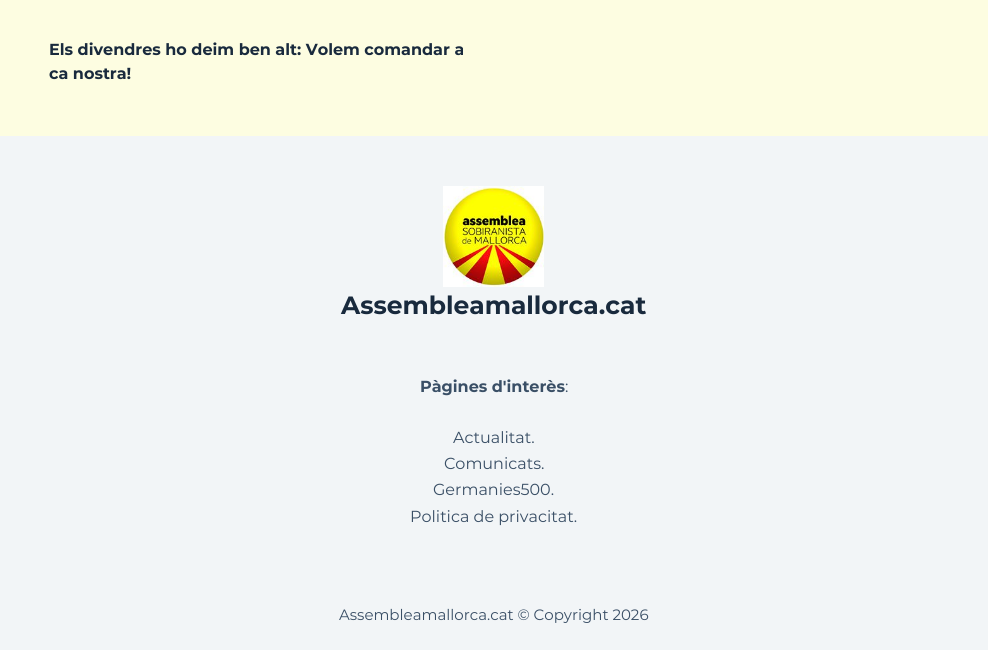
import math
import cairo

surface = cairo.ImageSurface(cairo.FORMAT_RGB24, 988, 650)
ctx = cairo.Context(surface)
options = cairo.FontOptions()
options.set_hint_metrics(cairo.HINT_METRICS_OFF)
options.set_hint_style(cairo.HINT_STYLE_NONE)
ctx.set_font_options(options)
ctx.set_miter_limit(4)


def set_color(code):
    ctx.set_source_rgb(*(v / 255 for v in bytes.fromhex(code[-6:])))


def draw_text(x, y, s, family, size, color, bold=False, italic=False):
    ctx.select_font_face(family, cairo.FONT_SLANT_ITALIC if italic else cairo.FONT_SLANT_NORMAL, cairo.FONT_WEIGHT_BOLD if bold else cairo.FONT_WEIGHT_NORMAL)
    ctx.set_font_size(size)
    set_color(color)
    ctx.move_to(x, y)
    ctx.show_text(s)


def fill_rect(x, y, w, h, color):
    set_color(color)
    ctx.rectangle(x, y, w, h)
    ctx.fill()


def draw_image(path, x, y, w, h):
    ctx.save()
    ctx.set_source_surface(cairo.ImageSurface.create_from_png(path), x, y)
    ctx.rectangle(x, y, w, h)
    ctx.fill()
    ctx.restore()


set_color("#fdfde1")
ctx.paint()
draw_text(49, 55, "Els divendres ho deim ben alt: Volem comandar a", "Montserrat", 16, "#192a3d", bold=True)
draw_text(49, 79, "ca nostra!", "Montserrat", 16, "#192a3d", bold=True)
fill_rect(0, 136, 988, 514, "#f2f5f7")
draw_image("assets/img1.png", 443, 186, 101, 101)
draw_text(341, 314, "Assembleamallorca.cat", "Montserrat", 25, "#192a3d", bold=True)
draw_text(420, 392, "Pàgines d'interès", "Montserrat", 16, "#3a4f66", bold=True)
draw_text(565, 392, ":", "Montserrat", 16, "#3a4f66")
draw_text(453, 443, "Actualitat.", "Montserrat", 16, "#3a4f66")
draw_text(444, 469, "Comunicats.", "Montserrat", 16, "#3a4f66")
draw_text(433, 495, "Germanies500.", "Montserrat", 16, "#3a4f66")
draw_text(410, 522, "Politica de privacitat.", "Montserrat", 16, "#3a4f66")
draw_text(339, 620, "Assembleamallorca.cat © Copyright 2026", "Montserrat", 15, "#3a4f66")
surface.write_to_png("output.png")
